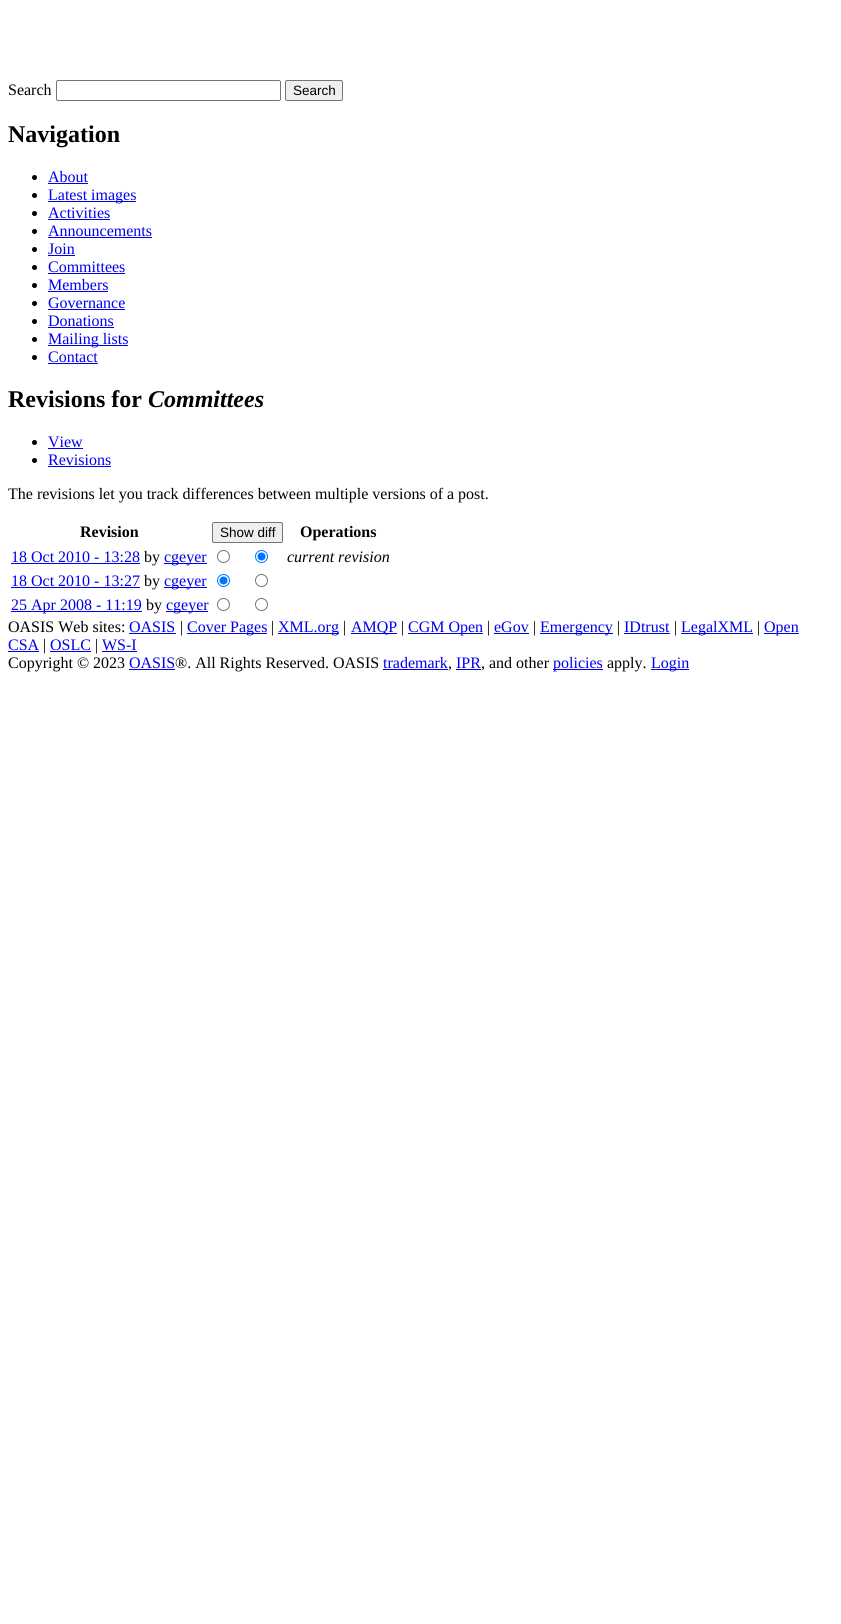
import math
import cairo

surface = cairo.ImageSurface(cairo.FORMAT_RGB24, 841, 1624)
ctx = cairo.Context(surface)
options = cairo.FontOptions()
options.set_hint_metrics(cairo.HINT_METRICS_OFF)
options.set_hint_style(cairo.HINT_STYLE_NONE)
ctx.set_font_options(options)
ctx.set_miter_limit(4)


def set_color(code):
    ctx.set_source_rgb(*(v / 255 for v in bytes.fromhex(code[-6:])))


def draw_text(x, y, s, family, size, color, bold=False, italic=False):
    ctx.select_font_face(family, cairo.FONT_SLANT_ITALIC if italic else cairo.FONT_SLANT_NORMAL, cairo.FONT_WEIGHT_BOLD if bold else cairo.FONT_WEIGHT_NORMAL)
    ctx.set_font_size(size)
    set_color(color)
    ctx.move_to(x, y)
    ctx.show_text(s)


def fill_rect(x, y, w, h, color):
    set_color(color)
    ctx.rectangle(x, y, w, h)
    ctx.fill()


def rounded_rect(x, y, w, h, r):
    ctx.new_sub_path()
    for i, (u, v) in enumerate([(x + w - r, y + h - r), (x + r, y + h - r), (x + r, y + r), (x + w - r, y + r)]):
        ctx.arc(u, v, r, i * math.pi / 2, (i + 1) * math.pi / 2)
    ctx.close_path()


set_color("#ffffff")
ctx.paint()
draw_text(8, 95, "Search", "Liberation Serif", 16, "#000000")
rounded_rect(56.5, 80.5, 224, 20, 1.5)
set_color("#767676")
ctx.set_line_width(1)
ctx.stroke()
set_color("#efefef")
rounded_rect(285.5, 80.5, 57, 20, 1.5)
ctx.fill_preserve()
set_color("#767676")
ctx.stroke()
draw_text(293, 95, "Search", "Liberation Sans", 13.5, "#000000")
draw_text(8, 142, "Navigation", "Liberation Serif", 24, "#000000", bold=True)
ctx.new_path()
ctx.arc(34.5, 177.5, 2.5, 0, 2 * math.pi)
ctx.fill()
draw_text(48, 182, "About", "Liberation Serif", 16, "#0000ee")
fill_rect(48, 183, 40, 1, "#0000ee")
set_color("#000000")
ctx.new_path()
ctx.arc(34.5, 195.5, 2.5, 0, 2 * math.pi)
ctx.fill()
fill_rect(48, 201, 88, 1, "#0000ee")
draw_text(48, 200, "Latest images", "Liberation Serif", 16, "#0000ee")
set_color("#000000")
ctx.new_path()
ctx.arc(34.5, 213.5, 2.5, 0, 2 * math.pi)
ctx.fill()
draw_text(48, 218, "Activities", "Liberation Serif", 16, "#0000ee")
fill_rect(48, 219, 62, 1, "#0000ee")
set_color("#000000")
ctx.new_path()
ctx.arc(34.5, 231.5, 2.5, 0, 2 * math.pi)
ctx.fill()
draw_text(48, 236, "Announcements", "Liberation Serif", 16, "#0000ee")
fill_rect(48, 237, 104, 1, "#0000ee")
set_color("#000000")
ctx.new_path()
ctx.arc(34.5, 249.5, 2.5, 0, 2 * math.pi)
ctx.fill()
draw_text(48, 254, "Join", "Liberation Serif", 16, "#0000ee")
fill_rect(48, 255, 27, 1, "#0000ee")
set_color("#000000")
ctx.new_path()
ctx.arc(34.5, 267.5, 2.5, 0, 2 * math.pi)
ctx.fill()
draw_text(48, 272, "Committees", "Liberation Serif", 16, "#0000ee")
fill_rect(48, 273, 77, 1, "#0000ee")
set_color("#000000")
ctx.new_path()
ctx.arc(34.5, 285.5, 2.5, 0, 2 * math.pi)
ctx.fill()
draw_text(48, 290, "Members", "Liberation Serif", 16, "#0000ee")
fill_rect(48, 291, 60, 1, "#0000ee")
set_color("#000000")
ctx.new_path()
ctx.arc(34.5, 303.5, 2.5, 0, 2 * math.pi)
ctx.fill()
draw_text(48, 308, "Governance", "Liberation Serif", 16, "#0000ee")
fill_rect(48, 309, 77, 1, "#0000ee")
set_color("#000000")
ctx.new_path()
ctx.arc(34.5, 321.5, 2.5, 0, 2 * math.pi)
ctx.fill()
draw_text(48, 326, "Donations", "Liberation Serif", 16, "#0000ee")
fill_rect(48, 327, 66, 1, "#0000ee")
set_color("#000000")
ctx.new_path()
ctx.arc(34.5, 339.5, 2.5, 0, 2 * math.pi)
ctx.fill()
fill_rect(48, 345, 80, 1, "#0000ee")
draw_text(48, 344, "Mailing lists", "Liberation Serif", 16, "#0000ee")
set_color("#000000")
ctx.new_path()
ctx.arc(34.5, 357.5, 2.5, 0, 2 * math.pi)
ctx.fill()
draw_text(48, 362, "Contact", "Liberation Serif", 16, "#0000ee")
fill_rect(48, 363, 50, 1, "#0000ee")
draw_text(8, 407, "Revisions for", "Liberation Serif", 24, "#000000", bold=True)
draw_text(148, 407, "Committees", "Liberation Serif", 24, "#000000", bold=True, italic=True)
ctx.new_path()
ctx.arc(34.5, 442.5, 2.5, 0, 2 * math.pi)
ctx.fill()
draw_text(48, 447, "View", "Liberation Serif", 16, "#0000ee")
fill_rect(48, 448, 35, 1, "#0000ee")
set_color("#000000")
ctx.new_path()
ctx.arc(34.5, 460.5, 2.5, 0, 2 * math.pi)
ctx.fill()
draw_text(48, 465, "Revisions", "Liberation Serif", 16, "#0000ee")
fill_rect(48, 466, 63, 1, "#0000ee")
draw_text(8, 499, "The revisions let you track differences between multiple versions of a post.", "Liberation Serif", 16, "#000000")
draw_text(80, 537, "Revision", "Liberation Serif", 16, "#000000", bold=True)
set_color("#efefef")
rounded_rect(212.5, 522.5, 70, 20, 1.5)
ctx.fill_preserve()
set_color("#767676")
ctx.stroke()
draw_text(220, 537, "Show diff", "Liberation Sans", 13.5, "#000000")
draw_text(300, 537, "Operations", "Liberation Serif", 16, "#000000", bold=True)
draw_text(11, 562, "18 Oct 2010 - 13:28", "Liberation Serif", 16, "#0000ee")
fill_rect(11, 563, 129, 1, "#0000ee")
draw_text(144, 562, "by", "Liberation Serif", 16, "#000000")
fill_rect(164, 563, 43, 1, "#0000ee")
draw_text(164, 562, "cgeyer", "Liberation Serif", 16, "#0000ee")
ctx.new_path()
ctx.arc(223.5, 556.5, 6, 0, 2 * math.pi)
set_color("#767676")
ctx.stroke()
ctx.arc(261.5, 556.5, 6, 0, 2 * math.pi)
set_color("#0075ff")
ctx.stroke()
ctx.arc(261.5, 556.5, 4, 0, 2 * math.pi)
ctx.fill()
draw_text(287, 562, "current revision", "Liberation Serif", 16, "#000000", italic=True)
draw_text(11, 586, "18 Oct 2010 - 13:27", "Liberation Serif", 16, "#0000ee")
fill_rect(11, 587, 129, 1, "#0000ee")
draw_text(144, 586, "by", "Liberation Serif", 16, "#000000")
fill_rect(164, 587, 43, 1, "#0000ee")
draw_text(164, 586, "cgeyer", "Liberation Serif", 16, "#0000ee")
ctx.new_path()
ctx.arc(223.5, 580.5, 6, 0, 2 * math.pi)
set_color("#0075ff")
ctx.stroke()
ctx.arc(223.5, 580.5, 4, 0, 2 * math.pi)
ctx.fill()
ctx.arc(261.5, 580.5, 6, 0, 2 * math.pi)
set_color("#767676")
ctx.stroke()
fill_rect(11, 611, 131, 1, "#0000ee")
draw_text(11, 610, "25 Apr 2008 - 11:19", "Liberation Serif", 16, "#0000ee")
draw_text(146, 610, "by", "Liberation Serif", 16, "#000000")
fill_rect(166, 611, 42, 1, "#0000ee")
draw_text(166, 610, "cgeyer", "Liberation Serif", 16, "#0000ee")
ctx.new_path()
ctx.arc(223.5, 604.5, 6, 0, 2 * math.pi)
set_color("#767676")
ctx.stroke()
ctx.arc(261.5, 604.5, 6, 0, 2 * math.pi)
ctx.stroke()
draw_text(8, 632, "OASIS Web sites:", "Liberation Serif", 16, "#000000")
draw_text(129, 632, "OASIS", "Liberation Serif", 16, "#0000ee")
fill_rect(129, 633, 47, 1, "#0000ee")
draw_text(180, 632, "|", "Liberation Serif", 16, "#000000")
fill_rect(187, 633, 80, 1, "#0000ee")
draw_text(187, 632, "Cover Pages", "Liberation Serif", 16, "#0000ee")
draw_text(271, 632, "|", "Liberation Serif", 16, "#000000")
fill_rect(278, 633, 61, 1, "#0000ee")
draw_text(278, 632, "XML.org", "Liberation Serif", 16, "#0000ee")
draw_text(343, 632, "|", "Liberation Serif", 16, "#000000")
fill_rect(351, 633, 46, 1, "#0000ee")
draw_text(351, 632, "AMQP", "Liberation Serif", 16, "#0000ee")
draw_text(401, 632, "|", "Liberation Serif", 16, "#000000")
fill_rect(408, 633, 75, 1, "#0000ee")
draw_text(408, 632, "CGM Open", "Liberation Serif", 16, "#0000ee")
draw_text(487, 632, "|", "Liberation Serif", 16, "#000000")
draw_text(494, 632, "eGov", "Liberation Serif", 16, "#0000ee")
fill_rect(494, 633, 35, 1, "#0000ee")
draw_text(533, 632, "|", "Liberation Serif", 16, "#000000")
fill_rect(540, 633, 73, 1, "#0000ee")
draw_text(540, 632, "Emergency", "Liberation Serif", 16, "#0000ee")
draw_text(617, 632, "|", "Liberation Serif", 16, "#000000")
draw_text(624, 632, "IDtrust", "Liberation Serif", 16, "#0000ee")
fill_rect(624, 633, 46, 1, "#0000ee")
draw_text(674, 632, "|", "Liberation Serif", 16, "#000000")
fill_rect(681, 633, 72, 1, "#0000ee")
draw_text(681, 632, "LegalXML", "Liberation Serif", 16, "#0000ee")
draw_text(757, 632, "|", "Liberation Serif", 16, "#000000")
fill_rect(764, 633, 35, 1, "#0000ee")
draw_text(764, 632, "Open", "Liberation Serif", 16, "#0000ee")
draw_text(8, 650, "CSA", "Liberation Serif", 16, "#0000ee")
fill_rect(8, 651, 31, 1, "#0000ee")
draw_text(43, 650, "|", "Liberation Serif", 16, "#000000")
draw_text(50, 650, "OSLC", "Liberation Serif", 16, "#0000ee")
fill_rect(50, 651, 41, 1, "#0000ee")
draw_text(95, 650, "|", "Liberation Serif", 16, "#000000")
draw_text(102, 650, "WS-I", "Liberation Serif", 16, "#0000ee")
fill_rect(102, 651, 35, 1, "#0000ee")
draw_text(8, 668, "Copyright © 2023", "Liberation Serif", 16, "#000000")
draw_text(129, 668, "OASIS", "Liberation Serif", 16, "#0000ee")
fill_rect(129, 669, 46, 1, "#0000ee")
draw_text(175, 668, "®. All Rights Reserved. OASIS", "Liberation Serif", 16, "#000000")
draw_text(383, 668, "trademark", "Liberation Serif", 16, "#0000ee")
fill_rect(383, 669, 65, 1, "#0000ee")
draw_text(448, 668, ",", "Liberation Serif", 16, "#000000")
draw_text(456, 668, "IPR", "Liberation Serif", 16, "#0000ee")
fill_rect(456, 669, 25, 1, "#0000ee")
draw_text(481, 668, ", and other", "Liberation Serif", 16, "#000000")
fill_rect(553, 669, 50, 1, "#0000ee")
draw_text(553, 668, "policies", "Liberation Serif", 16, "#0000ee")
draw_text(607, 668, "apply.", "Liberation Serif", 16, "#000000")
fill_rect(651, 669, 38, 1, "#0000ee")
draw_text(651, 668, "Login", "Liberation Serif", 16, "#0000ee")
surface.write_to_png("output.png")
